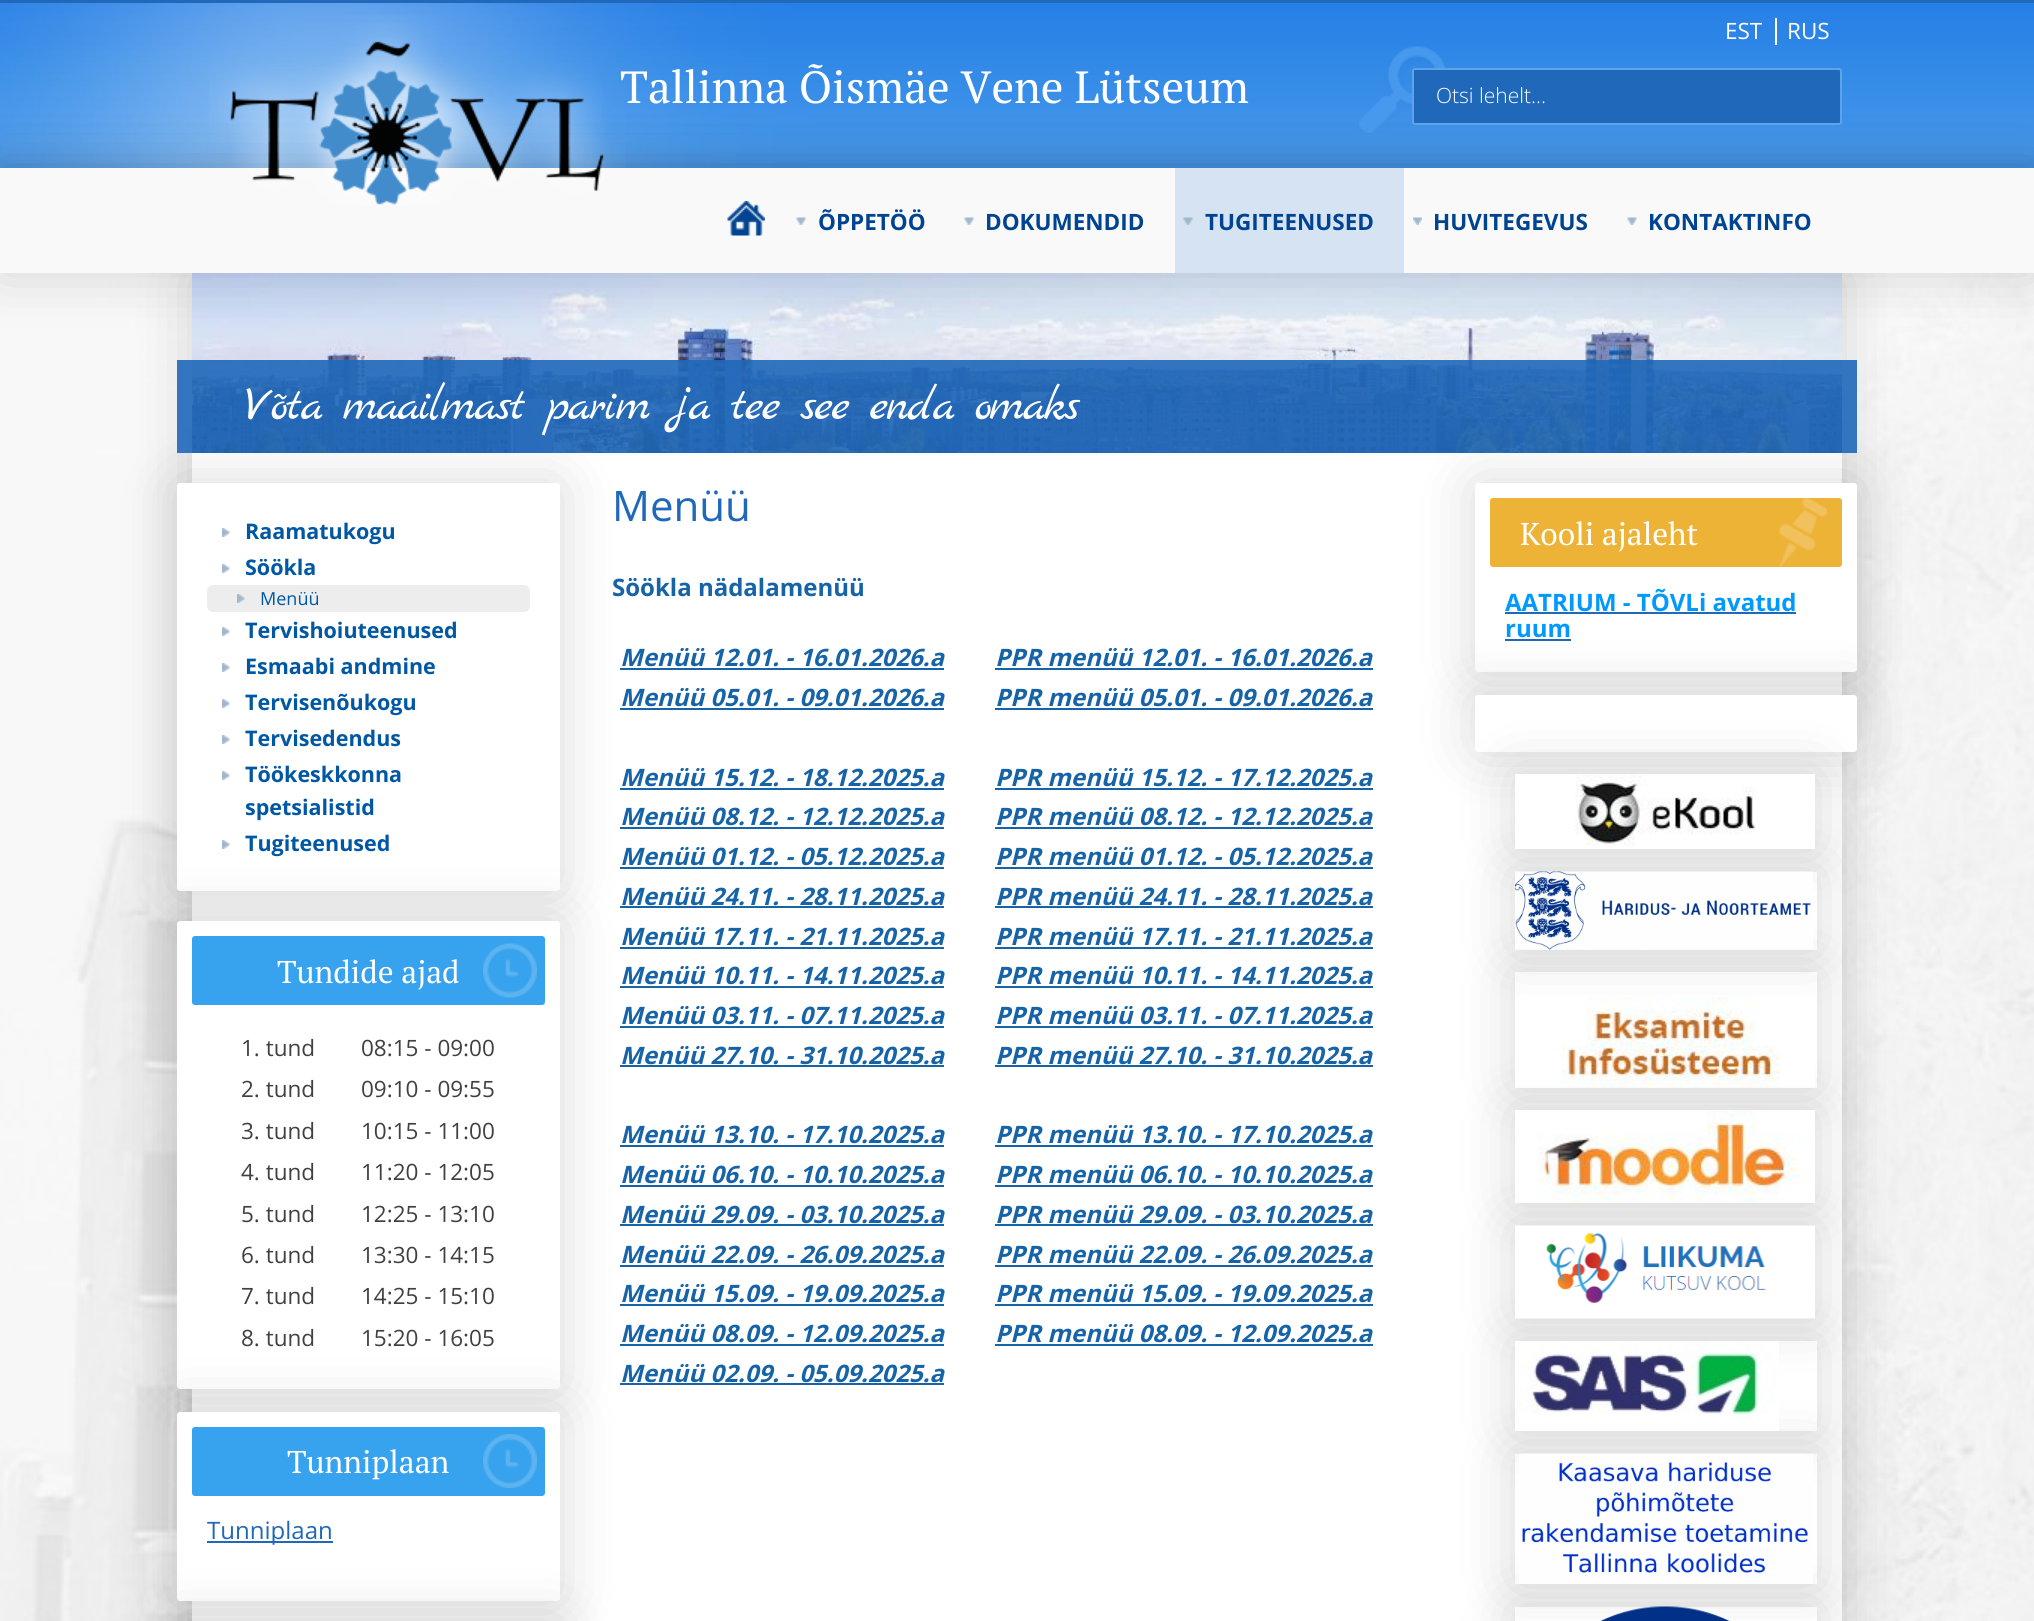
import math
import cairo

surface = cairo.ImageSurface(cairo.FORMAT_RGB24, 2034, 1621)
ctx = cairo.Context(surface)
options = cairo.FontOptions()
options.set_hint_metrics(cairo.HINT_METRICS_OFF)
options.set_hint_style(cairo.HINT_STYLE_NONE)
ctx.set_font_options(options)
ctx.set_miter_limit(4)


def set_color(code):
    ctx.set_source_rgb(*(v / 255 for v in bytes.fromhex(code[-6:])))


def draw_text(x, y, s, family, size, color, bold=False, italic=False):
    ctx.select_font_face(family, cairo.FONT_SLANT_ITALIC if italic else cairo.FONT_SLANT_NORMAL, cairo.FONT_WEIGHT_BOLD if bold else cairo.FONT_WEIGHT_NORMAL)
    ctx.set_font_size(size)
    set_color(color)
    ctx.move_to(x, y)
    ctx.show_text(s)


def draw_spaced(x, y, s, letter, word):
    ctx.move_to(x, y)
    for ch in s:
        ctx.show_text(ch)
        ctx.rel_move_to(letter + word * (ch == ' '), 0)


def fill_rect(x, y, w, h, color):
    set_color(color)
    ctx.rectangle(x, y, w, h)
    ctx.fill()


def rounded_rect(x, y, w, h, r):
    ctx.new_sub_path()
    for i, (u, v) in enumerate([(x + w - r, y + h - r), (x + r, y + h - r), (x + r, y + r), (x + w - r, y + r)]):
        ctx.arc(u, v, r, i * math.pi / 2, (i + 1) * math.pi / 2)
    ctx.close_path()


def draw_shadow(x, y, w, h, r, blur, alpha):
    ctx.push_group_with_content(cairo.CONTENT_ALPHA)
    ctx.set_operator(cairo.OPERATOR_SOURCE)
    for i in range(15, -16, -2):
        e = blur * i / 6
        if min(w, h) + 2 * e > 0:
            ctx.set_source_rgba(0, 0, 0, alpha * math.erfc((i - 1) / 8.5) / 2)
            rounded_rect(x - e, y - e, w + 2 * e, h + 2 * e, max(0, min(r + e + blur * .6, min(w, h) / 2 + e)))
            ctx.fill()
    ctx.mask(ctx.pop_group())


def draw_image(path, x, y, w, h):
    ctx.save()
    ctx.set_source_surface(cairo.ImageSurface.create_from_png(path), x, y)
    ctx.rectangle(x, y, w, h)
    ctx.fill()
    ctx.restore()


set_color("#ffffff")
ctx.paint()
draw_image("assets/img1.png", 0, 273, 2034, 1348)
draw_image("assets/img2.png", 0, 3, 2034, 165)
fill_rect(0, 0, 2034, 3, "#2068b9")
draw_text(620, 103, "Tallinna Õismäe Vene Lütseum", "PT Serif", 45.1, "#ffffff")
set_color("#000000")
draw_shadow(192, 273, 1650, 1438, 0, 30, 0.15)
fill_rect(192, 453, 1650, 1168, "#ffffff")
fill_rect(620, 668, 324, 2, "#1663a8")
fill_rect(620, 708, 324, 2, "#1663a8")
fill_rect(620, 788, 324, 2, "#1663a8")
fill_rect(620, 827, 324, 2, "#1663a8")
fill_rect(620, 867, 324, 2, "#1663a8")
fill_rect(620, 906, 324, 2, "#1663a8")
fill_rect(620, 947, 324, 2, "#1663a8")
set_color("#000000")
draw_shadow(177, 483, 383, 408, 3, 30, 0.15)
draw_shadow(1475, 483, 382, 189, 3, 30, 0.15)
draw_image("assets/img9.png", 192, 273, 1650, 180)
ctx.set_source_rgba(0.125, 0.408, 0.725, 0.9)
ctx.rectangle(177, 360, 1680, 93)
ctx.fill()
set_color("#000000")
draw_shadow(0, 168, 2034, 105, 0, 30, 0.15)
fill_rect(0, 168, 2034, 105, "#f9f9f9")
draw_image("assets/img3.png", 209, 14, 417, 191)
draw_text(1725, 39, "EST", "Open Sans", 22.5, "#ffffff")
fill_rect(1775, 18, 2, 27, "#ffffff")
draw_text(1787, 39, "RUS", "Open Sans", 22.5, "#ffffff")
draw_image("assets/img4.png", 1359, 46, 87, 87)
set_color("#2068b9")
rounded_rect(1413, 69, 428, 55, 2)
ctx.fill_preserve()
set_color("#5da3ea")
ctx.stroke()
draw_text(1436, 103, "Otsi lehelt...", "Open Sans Light", 21, "#ffffff")
draw_image("assets/img5.png", 727, 201, 38, 35)
draw_image("assets/img6.png", 796, 217, 10, 8)
draw_text(818, 230, "ÕPPETÖÖ", "Open Sans", 22.5, "#004491", bold=True)
draw_image("assets/img6.png", 964, 217, 10, 8)
draw_text(985, 230, "DOKUMENDID", "Open Sans", 22.5, "#004491", bold=True)
fill_rect(1175, 168, 229, 105, "#d6e3f3")
draw_image("assets/img7.png", 1183, 217, 10, 8)
draw_text(1205, 230, "TUGITEENUSED", "Open Sans", 22.5, "#004491", bold=True)
draw_image("assets/img8.png", 1413, 217, 9, 8)
draw_text(1433, 230, "HUVITEGEVUS", "Open Sans", 22.5, "#004491", bold=True)
draw_image("assets/img6.png", 1627, 217, 10, 8)
draw_text(1648, 230, "KONTAKTINFO", "Open Sans", 22.5, "#004491", bold=True)
ctx.select_font_face("Marck Script")
ctx.set_font_size(48)
set_color("#ffffff")
draw_spaced(245, 419, "Võta maailmast parim ja tee see enda omaks", -1.5, 0)
rounded_rect(177, 483, 383, 408, 3)
ctx.fill()
draw_image("assets/img10.png", 222, 528, 8, 9)
draw_text(245, 539, "Raamatukogu", "Open Sans", 21.5, "#0057a4", bold=True)
draw_image("assets/img10.png", 222, 564, 8, 9)
draw_text(245, 575, "Söökla", "Open Sans", 21.5, "#0057a4", bold=True)
set_color("#ededed")
rounded_rect(207, 585, 323, 27, 6)
ctx.fill()
draw_image("assets/img11.png", 237, 594, 8, 9)
draw_text(260, 605, "Menüü", "Open Sans", 18, "#0057a4")
draw_image("assets/img10.png", 222, 627, 8, 9)
draw_text(245, 638, "Tervishoiuteenused", "Open Sans", 21.5, "#0057a4", bold=True)
draw_image("assets/img10.png", 222, 663, 8, 9)
draw_text(245, 674, "Esmaabi andmine", "Open Sans", 21.5, "#0057a4", bold=True)
draw_image("assets/img10.png", 222, 699, 8, 9)
draw_text(245, 710, "Tervisenõukogu", "Open Sans", 21.5, "#0057a4", bold=True)
draw_image("assets/img10.png", 222, 735, 8, 9)
draw_text(245, 746, "Tervisedendus", "Open Sans", 21.5, "#0057a4", bold=True)
draw_image("assets/img10.png", 222, 771, 8, 9)
draw_text(245, 782, "Töökeskkonna", "Open Sans", 21.5, "#0057a4", bold=True)
draw_text(245, 815, "spetsialistid", "Open Sans", 21.5, "#0057a4", bold=True)
draw_image("assets/img10.png", 222, 840, 8, 9)
fill_rect(620, 986, 324, 2, "#1663a8")
fill_rect(620, 1026, 324, 2, "#1663a8")
fill_rect(620, 1065, 324, 2, "#1663a8")
fill_rect(620, 1145, 324, 2, "#1663a8")
fill_rect(620, 1185, 324, 2, "#1663a8")
fill_rect(620, 1224, 324, 2, "#1663a8")
fill_rect(620, 1265, 324, 2, "#1663a8")
fill_rect(620, 1304, 324, 2, "#1663a8")
fill_rect(620, 1344, 324, 2, "#1663a8")
fill_rect(620, 1383, 324, 2, "#1663a8")
set_color("#000000")
draw_shadow(177, 921, 383, 468, 3, 30, 0.15)
draw_text(245, 851, "Tugiteenused", "Open Sans", 21.5, "#0057a4", bold=True)
set_color("#ffffff")
rounded_rect(177, 921, 383, 468, 3)
ctx.fill()
set_color("#37a2ed")
rounded_rect(192, 936, 353, 69, 3)
ctx.fill()
draw_image("assets/img12.png", 483, 943, 54, 55)
draw_text(277, 983, "Tundide ajad", "PT Serif", 31.5, "#ffffff")
draw_text(241, 1056, "1. tund", "Open Sans", 22.5, "#404040")
draw_text(361, 1056, "08:15 - 09:00", "Open Sans", 22.5, "#404040")
draw_text(241, 1097, "2. tund", "Open Sans", 22.5, "#404040")
draw_text(361, 1097, "09:10 - 09:55", "Open Sans", 22.5, "#404040")
draw_text(241, 1139, "3. tund", "Open Sans", 22.5, "#404040")
draw_text(361, 1139, "10:15 - 11:00", "Open Sans", 22.5, "#404040")
draw_text(241, 1180, "4. tund", "Open Sans", 22.5, "#404040")
draw_text(361, 1180, "11:20 - 12:05", "Open Sans", 22.5, "#404040")
draw_text(241, 1222, "5. tund", "Open Sans", 22.5, "#404040")
draw_text(361, 1222, "12:25 - 13:10", "Open Sans", 22.5, "#404040")
draw_text(241, 1263, "6. tund", "Open Sans", 22.5, "#404040")
draw_text(361, 1263, "13:30 - 14:15", "Open Sans", 22.5, "#404040")
draw_text(241, 1304, "7. tund", "Open Sans", 22.5, "#404040")
draw_text(361, 1304, "14:25 - 15:10", "Open Sans", 22.5, "#404040")
set_color("#000000")
draw_shadow(177, 1412, 383, 189, 3, 30, 0.15)
draw_text(241, 1346, "8. tund", "Open Sans", 22.5, "#404040")
draw_text(361, 1346, "15:20 - 16:05", "Open Sans", 22.5, "#404040")
set_color("#ffffff")
rounded_rect(177, 1412, 383, 189, 3)
ctx.fill()
set_color("#37a2ed")
rounded_rect(192, 1427, 353, 69, 3)
ctx.fill()
draw_image("assets/img13.png", 483, 1434, 54, 54)
draw_text(287, 1473, "Tunniplaan", "PT Serif", 31.5, "#ffffff")
set_color("#000000")
draw_shadow(177, 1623, 383, 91, 3, 30, 0.15)
fill_rect(207, 1541, 126, 2, "#2068b9")
draw_text(207, 1539, "Tunniplaan", "Open Sans", 24, "#2068b9")
draw_text(612, 521, "Menüü", "Open Sans", 42, "#2068b9")
draw_text(612, 596, "Söökla nädalamenüü", "Open Sans", 24, "#1663a8", bold=True)
draw_text(620, 666, "Menüü 12.01. - 16.01.2026.a", "Open Sans", 24, "#1663a8", bold=True, italic=True)
draw_text(995, 666, "PPR menüü 12.01. - 16.01.2026.a", "Open Sans", 24, "#1663a8", bold=True, italic=True)
fill_rect(995, 668, 378, 2, "#1663a8")
draw_text(620, 706, "Menüü 05.01. - 09.01.2026.a", "Open Sans", 24, "#1663a8", bold=True, italic=True)
draw_text(995, 706, "PPR menüü 05.01. - 09.01.2026.a", "Open Sans", 24, "#1663a8", bold=True, italic=True)
fill_rect(995, 708, 378, 2, "#1663a8")
draw_text(620, 786, "Menüü 15.12. - 18.12.2025.a", "Open Sans", 24, "#1663a8", bold=True, italic=True)
draw_text(995, 786, "PPR menüü 15.12. - 17.12.2025.a", "Open Sans", 24, "#1663a8", bold=True, italic=True)
fill_rect(995, 788, 378, 2, "#1663a8")
draw_text(620, 825, "Menüü 08.12. - 12.12.2025.a", "Open Sans", 24, "#1663a8", bold=True, italic=True)
draw_text(995, 825, "PPR menüü 08.12. - 12.12.2025.a", "Open Sans", 24, "#1663a8", bold=True, italic=True)
fill_rect(995, 827, 378, 2, "#1663a8")
draw_text(620, 865, "Menüü 01.12. - 05.12.2025.a", "Open Sans", 24, "#1663a8", bold=True, italic=True)
draw_text(995, 865, "PPR menüü 01.12. - 05.12.2025.a", "Open Sans", 24, "#1663a8", bold=True, italic=True)
fill_rect(995, 867, 378, 2, "#1663a8")
draw_text(620, 905, "Menüü 24.11. - 28.11.2025.a", "Open Sans", 24, "#1663a8", bold=True, italic=True)
draw_text(995, 905, "PPR menüü 24.11. - 28.11.2025.a", "Open Sans", 24, "#1663a8", bold=True, italic=True)
fill_rect(995, 906, 378, 2, "#1663a8")
draw_text(620, 945, "Menüü 17.11. - 21.11.2025.a", "Open Sans", 24, "#1663a8", bold=True, italic=True)
draw_text(995, 945, "PPR menüü 17.11. - 21.11.2025.a", "Open Sans", 24, "#1663a8", bold=True, italic=True)
fill_rect(995, 947, 378, 2, "#1663a8")
draw_text(620, 984, "Menüü 10.11. - 14.11.2025.a", "Open Sans", 24, "#1663a8", bold=True, italic=True)
draw_text(995, 984, "PPR menüü 10.11. - 14.11.2025.a", "Open Sans", 24, "#1663a8", bold=True, italic=True)
fill_rect(995, 986, 378, 2, "#1663a8")
draw_text(620, 1024, "Menüü 03.11. - 07.11.2025.a", "Open Sans", 24, "#1663a8", bold=True, italic=True)
draw_text(995, 1024, "PPR menüü 03.11. - 07.11.2025.a", "Open Sans", 24, "#1663a8", bold=True, italic=True)
fill_rect(995, 1026, 378, 2, "#1663a8")
draw_text(620, 1064, "Menüü 27.10. - 31.10.2025.a", "Open Sans", 24, "#1663a8", bold=True, italic=True)
draw_text(995, 1064, "PPR menüü 27.10. - 31.10.2025.a", "Open Sans", 24, "#1663a8", bold=True, italic=True)
fill_rect(995, 1065, 378, 2, "#1663a8")
draw_text(620, 1143, "Menüü 13.10. - 17.10.2025.a", "Open Sans", 24, "#1663a8", bold=True, italic=True)
draw_text(995, 1143, "PPR menüü 13.10. - 17.10.2025.a", "Open Sans", 24, "#1663a8", bold=True, italic=True)
fill_rect(995, 1145, 378, 2, "#1663a8")
draw_text(620, 1183, "Menüü 06.10. - 10.10.2025.a", "Open Sans", 24, "#1663a8", bold=True, italic=True)
draw_text(995, 1183, "PPR menüü 06.10. - 10.10.2025.a", "Open Sans", 24, "#1663a8", bold=True, italic=True)
fill_rect(995, 1185, 378, 2, "#1663a8")
draw_text(620, 1223, "Menüü 29.09. - 03.10.2025.a", "Open Sans", 24, "#1663a8", bold=True, italic=True)
draw_text(995, 1223, "PPR menüü 29.09. - 03.10.2025.a", "Open Sans", 24, "#1663a8", bold=True, italic=True)
fill_rect(995, 1224, 378, 2, "#1663a8")
draw_text(620, 1263, "Menüü 22.09. - 26.09.2025.a", "Open Sans", 24, "#1663a8", bold=True, italic=True)
draw_text(995, 1263, "PPR menüü 22.09. - 26.09.2025.a", "Open Sans", 24, "#1663a8", bold=True, italic=True)
fill_rect(995, 1265, 378, 2, "#1663a8")
draw_text(620, 1302, "Menüü 15.09. - 19.09.2025.a", "Open Sans", 24, "#1663a8", bold=True, italic=True)
draw_text(995, 1302, "PPR menüü 15.09. - 19.09.2025.a", "Open Sans", 24, "#1663a8", bold=True, italic=True)
fill_rect(995, 1304, 378, 2, "#1663a8")
draw_text(620, 1342, "Menüü 08.09. - 12.09.2025.a", "Open Sans", 24, "#1663a8", bold=True, italic=True)
draw_text(995, 1342, "PPR menüü 08.09. - 12.09.2025.a", "Open Sans", 24, "#1663a8", bold=True, italic=True)
fill_rect(995, 1344, 378, 2, "#1663a8")
draw_text(620, 1382, "Menüü 02.09. - 05.09.2025.a", "Open Sans", 24, "#1663a8", bold=True, italic=True)
set_color("#ffffff")
rounded_rect(1475, 483, 382, 189, 3)
ctx.fill()
set_color("#edb337")
rounded_rect(1490, 498, 352, 69, 3)
ctx.fill()
draw_image("assets/img14.png", 1779, 498, 48, 69)
draw_text(1520, 545, "Kooli ajaleht", "PT Serif", 31.5, "#ffffff")
set_color("#000000")
draw_shadow(1475, 695, 382, 57, 3, 30, 0.15)
draw_text(1505, 611, "АATRIUM - TÕVLi avatud", "Open Sans", 24, "#0099ff", bold=True)
fill_rect(1505, 612, 291, 2, "#2068b9")
draw_text(1505, 637, "ruum", "Open Sans", 24, "#0099ff", bold=True)
fill_rect(1505, 639, 66, 2, "#2068b9")
set_color("#ffffff")
rounded_rect(1475, 695, 382, 57, 3)
ctx.fill()
set_color("#000000")
draw_shadow(1515, 774, 302, 75, 0, 30, 0.15)
ctx.save()
ctx.set_fill_rule(cairo.FILL_RULE_EVEN_ODD)
ctx.new_path()
ctx.move_to(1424, 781)
ctx.line_to(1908, 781)
ctx.line_to(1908, 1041)
ctx.line_to(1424, 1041)
ctx.close_path()
ctx.move_to(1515, 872)
ctx.line_to(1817, 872)
ctx.line_to(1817, 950)
ctx.line_to(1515, 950)
ctx.close_path()
ctx.clip()
draw_shadow(1515, 872, 302, 78, 0, 30, 0.15)
ctx.restore()
draw_image("assets/img15.png", 1515, 774, 300, 75)
ctx.save()
ctx.set_fill_rule(cairo.FILL_RULE_EVEN_ODD)
ctx.new_path()
ctx.move_to(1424, 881)
ctx.line_to(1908, 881)
ctx.line_to(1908, 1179)
ctx.line_to(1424, 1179)
ctx.close_path()
ctx.move_to(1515, 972)
ctx.line_to(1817, 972)
ctx.line_to(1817, 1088)
ctx.line_to(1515, 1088)
ctx.close_path()
ctx.clip()
draw_shadow(1515, 972, 302, 116, 0, 30, 0.15)
ctx.restore()
draw_image("assets/img16.png", 1515, 871, 298, 79)
draw_shadow(1515, 1110, 302, 93, 0, 30, 0.15)
draw_image("assets/img17.png", 1515, 997, 300, 91)
draw_shadow(1515, 1226, 302, 93, 0, 30, 0.15)
draw_image("assets/img18.png", 1515, 1110, 300, 93)
ctx.save()
ctx.set_fill_rule(cairo.FILL_RULE_EVEN_ODD)
ctx.new_path()
ctx.move_to(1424, 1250)
ctx.line_to(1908, 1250)
ctx.line_to(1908, 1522)
ctx.line_to(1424, 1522)
ctx.close_path()
ctx.move_to(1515, 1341)
ctx.line_to(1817, 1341)
ctx.line_to(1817, 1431)
ctx.line_to(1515, 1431)
ctx.close_path()
ctx.clip()
draw_shadow(1515, 1341, 302, 90, 0, 30, 0.15)
ctx.restore()
draw_image("assets/img19.png", 1515, 1225, 300, 94)
ctx.save()
ctx.set_fill_rule(cairo.FILL_RULE_EVEN_ODD)
ctx.new_path()
ctx.move_to(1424, 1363)
ctx.line_to(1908, 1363)
ctx.line_to(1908, 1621)
ctx.line_to(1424, 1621)
ctx.close_path()
ctx.move_to(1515, 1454)
ctx.line_to(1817, 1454)
ctx.line_to(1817, 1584)
ctx.line_to(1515, 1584)
ctx.close_path()
ctx.clip()
draw_shadow(1515, 1454, 302, 130, 0, 30, 0.15)
ctx.restore()
draw_image("assets/img20.png", 1515, 1341, 264, 90)
ctx.save()
ctx.set_fill_rule(cairo.FILL_RULE_EVEN_ODD)
ctx.new_path()
ctx.move_to(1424, 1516)
ctx.line_to(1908, 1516)
ctx.line_to(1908, 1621)
ctx.line_to(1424, 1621)
ctx.close_path()
ctx.move_to(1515, 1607)
ctx.line_to(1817, 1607)
ctx.line_to(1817, 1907)
ctx.line_to(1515, 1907)
ctx.close_path()
ctx.clip()
draw_shadow(1515, 1607, 302, 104, 0, 30, 0.15)
ctx.restore()
draw_image("assets/img21.png", 1519, 1453, 294, 131)
draw_image("assets/img22.png", 1600, 1606, 130, 15)
surface.write_to_png("output.png")
